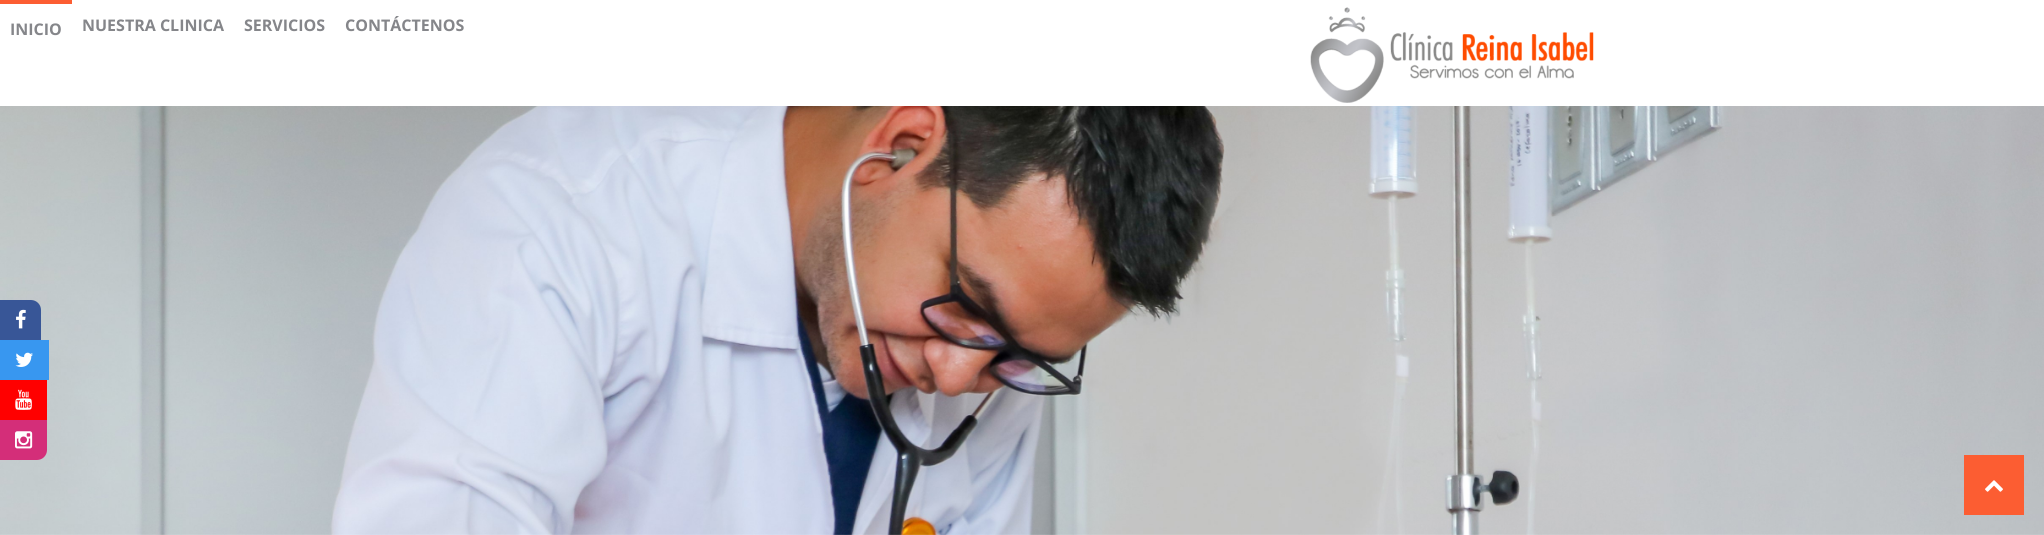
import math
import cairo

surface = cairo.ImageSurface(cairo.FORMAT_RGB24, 2044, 535)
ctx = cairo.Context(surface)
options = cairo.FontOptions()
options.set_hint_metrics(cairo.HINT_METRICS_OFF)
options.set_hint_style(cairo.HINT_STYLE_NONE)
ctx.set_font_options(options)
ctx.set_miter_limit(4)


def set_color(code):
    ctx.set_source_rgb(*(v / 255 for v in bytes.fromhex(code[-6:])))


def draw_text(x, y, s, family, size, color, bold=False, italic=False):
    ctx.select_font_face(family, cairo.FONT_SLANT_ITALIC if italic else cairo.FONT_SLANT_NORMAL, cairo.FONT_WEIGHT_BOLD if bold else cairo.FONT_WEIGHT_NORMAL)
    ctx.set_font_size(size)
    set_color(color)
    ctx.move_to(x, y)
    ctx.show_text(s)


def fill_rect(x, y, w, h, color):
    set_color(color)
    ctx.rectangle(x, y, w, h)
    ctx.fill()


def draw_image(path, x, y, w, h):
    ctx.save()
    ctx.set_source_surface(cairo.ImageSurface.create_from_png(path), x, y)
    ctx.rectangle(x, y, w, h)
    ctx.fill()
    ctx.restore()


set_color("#ffffff")
ctx.paint()
fill_rect(0, 0, 72, 4, "#fc5d32")
draw_text(10, 35, "INICIO", "Open Sans", 16, "#85868a", bold=True)
draw_text(82, 31, "NUESTRA CLINICA", "Open Sans", 16, "#85868a", bold=True)
draw_text(244, 31, "SERVICIOS", "Open Sans", 16, "#85868a", bold=True)
draw_text(345, 31, "CONTÁCTENOS", "Open Sans", 16, "#85868a", bold=True)
draw_image("assets/img1.png", 1310, 7, 284, 96)
draw_image("assets/img2.png", 0, 106, 2044, 429)
set_color("#385697")
ctx.new_path()
ctx.move_to(0, 300)
ctx.line_to(31, 300)
ctx.curve_to(36.5, 300, 41, 304.5, 41, 310)
ctx.line_to(41, 340)
ctx.line_to(0, 340)
ctx.close_path()
ctx.fill()
draw_image("assets/img3.png", 16, 309, 10, 20)
fill_rect(0, 340, 49, 40, "#3897f0")
draw_image("assets/img4.png", 15, 352, 18, 15)
fill_rect(0, 380, 47, 40, "#ff0000")
draw_image("assets/img5.png", 15, 389, 17, 21)
set_color("#d42e79")
ctx.new_path()
ctx.move_to(0, 420)
ctx.line_to(47, 420)
ctx.line_to(47, 450)
ctx.curve_to(47, 455.5, 42.5, 460, 37, 460)
ctx.line_to(0, 460)
ctx.close_path()
ctx.fill()
draw_image("assets/img6.png", 15, 431, 18, 18)
fill_rect(1964, 455, 60, 60, "#fc5d32")
draw_image("assets/img7.png", 1985, 480, 18, 12)
surface.write_to_png("output.png")
